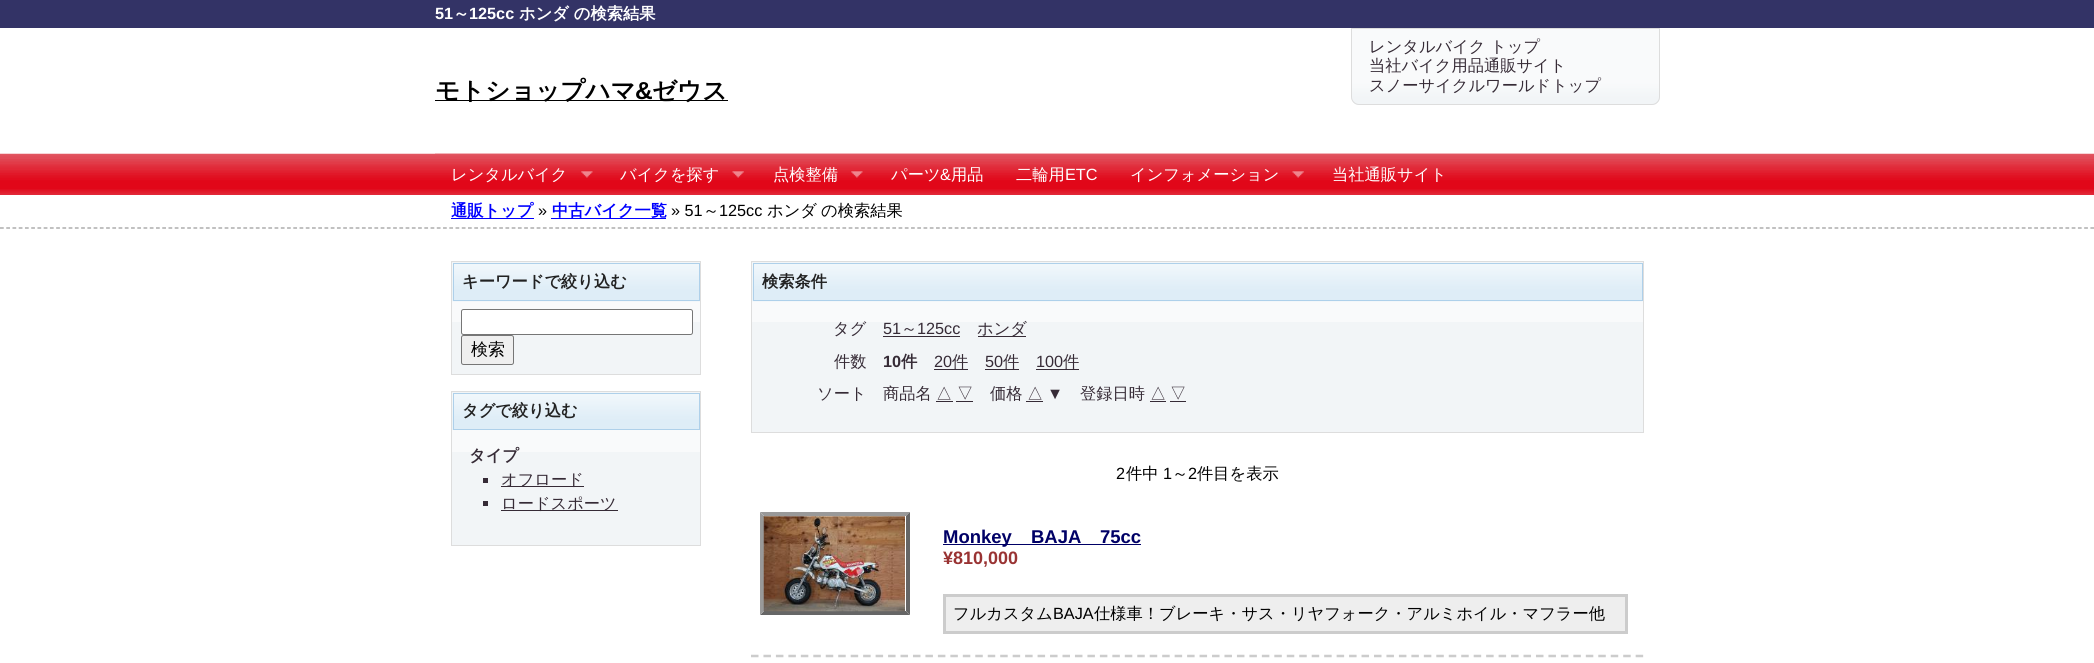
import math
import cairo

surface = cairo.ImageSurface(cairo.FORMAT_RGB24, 2094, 663)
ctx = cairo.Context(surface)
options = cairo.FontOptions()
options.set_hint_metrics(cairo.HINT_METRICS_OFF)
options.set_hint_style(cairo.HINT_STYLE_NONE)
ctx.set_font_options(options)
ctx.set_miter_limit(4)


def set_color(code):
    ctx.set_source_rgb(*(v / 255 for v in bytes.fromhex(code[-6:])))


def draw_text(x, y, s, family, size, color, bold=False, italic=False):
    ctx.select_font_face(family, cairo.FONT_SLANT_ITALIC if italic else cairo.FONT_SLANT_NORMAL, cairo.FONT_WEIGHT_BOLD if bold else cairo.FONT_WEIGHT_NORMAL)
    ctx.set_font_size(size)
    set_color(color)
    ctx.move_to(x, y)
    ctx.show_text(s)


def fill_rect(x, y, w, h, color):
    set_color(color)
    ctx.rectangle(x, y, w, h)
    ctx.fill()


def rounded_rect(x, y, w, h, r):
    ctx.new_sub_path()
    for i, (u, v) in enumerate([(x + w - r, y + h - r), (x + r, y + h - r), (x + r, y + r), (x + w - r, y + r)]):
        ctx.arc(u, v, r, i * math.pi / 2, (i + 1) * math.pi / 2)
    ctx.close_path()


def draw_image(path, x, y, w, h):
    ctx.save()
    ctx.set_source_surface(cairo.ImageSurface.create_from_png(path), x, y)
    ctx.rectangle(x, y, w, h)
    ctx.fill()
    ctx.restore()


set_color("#ffffff")
ctx.paint()
fill_rect(0, 0, 2094, 28, "#333366")
draw_text(435, 19, "51", "Liberation Sans", 16.25, "#ffffff", bold=True)
draw_text(453, 19, "～", "WenQuanYi Zen Hei", 16.25, "#ffffff", bold=True)
draw_text(469, 19, "125cc", "Liberation Sans", 16.25, "#ffffff", bold=True)
draw_text(519, 19, "ホンダ の検索結果", "WenQuanYi Zen Hei", 16.25, "#ffffff", bold=True)
fill_rect(435, 100, 293, 1, "#000000")
draw_text(435, 99, "モトショップハマ", "WenQuanYi Zen Hei", 24.5, "#000000", bold=True)
draw_text(635, 99, "&", "Liberation Sans", 24.5, "#000000", bold=True)
draw_text(652, 99, "ゼウス", "WenQuanYi Zen Hei", 24.5, "#000000", bold=True)
draw_image("assets/img1.png", 1351, 29, 309, 76)
ctx.new_path()
ctx.move_to(1351.5, 28.5)
ctx.line_to(1659.5, 28.5)
ctx.line_to(1659.5, 97)
ctx.curve_to(1659.5, 101, 1656, 104.5, 1652, 104.5)
ctx.line_to(1359, 104.5)
ctx.curve_to(1355, 104.5, 1351.5, 101, 1351.5, 97)
ctx.close_path()
set_color("#dddddd")
ctx.set_line_width(1)
ctx.stroke()
draw_text(1369, 52, "レンタルバイク トップ", "WenQuanYi Zen Hei Medium", 16.25, "#362b36")
draw_text(1369, 71, "当社バイク用品通販サイト", "WenQuanYi Zen Hei Medium", 16.25, "#362b36")
draw_text(1369, 91, "スノーサイクルワールドトップ", "WenQuanYi Zen Hei Medium", 16.25, "#362b36")
draw_image("assets/img2.png", 0, 153, 2094, 42)
fill_rect(435, 153, 1225, 1, "#f3b4b9")
draw_text(451, 180, "レンタルバイク", "WenQuanYi Zen Hei Medium", 16.25, "#ffffff")
draw_image("assets/img3.png", 581, 171, 12, 7)
draw_text(620, 180, "バイクを探す", "WenQuanYi Zen Hei Medium", 16.25, "#ffffff")
draw_image("assets/img4.png", 732, 171, 12, 7)
draw_text(773, 180, "点検整備", "WenQuanYi Zen Hei Medium", 16.25, "#ffffff")
draw_image("assets/img5.png", 851, 171, 12, 7)
draw_text(891, 180, "パーツ", "WenQuanYi Zen Hei Medium", 16.25, "#ffffff")
draw_text(940, 180, "&", "Liberation Sans", 16.25, "#ffffff")
draw_text(951, 180, "用品", "WenQuanYi Zen Hei Medium", 16.25, "#ffffff")
draw_text(1016, 180, "二輪用", "WenQuanYi Zen Hei Medium", 16.25, "#ffffff")
draw_text(1065, 180, "ETC", "Liberation Sans", 16.25, "#ffffff")
draw_text(1130, 180, "インフォメーション", "WenQuanYi Zen Hei Medium", 16.25, "#ffffff")
draw_image("assets/img4.png", 1292, 171, 12, 7)
draw_text(1332, 180, "当社通販サイト", "WenQuanYi Zen Hei Medium", 16.25, "#ffffff")
ctx.new_path()
ctx.move_to(0, 228)
ctx.line_to(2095, 228)
set_color("#999999")
ctx.set_line_width(1.2)
ctx.set_dash([3.75, 2.49])
ctx.stroke()
fill_rect(451, 218, 83, 1, "#0000ff")
draw_text(451, 216, "通販トップ", "WenQuanYi Zen Hei", 16.25, "#0000ff", bold=True)
draw_text(538, 216, "»", "Liberation Sans", 16.25, "#000000")
fill_rect(551, 218, 115, 1, "#0000ff")
draw_text(552, 216, "中古バイク一覧", "WenQuanYi Zen Hei", 16.25, "#0000ff", bold=True)
draw_text(671, 216, "» 51", "Liberation Sans", 16.25, "#000000")
draw_text(703, 216, "～", "WenQuanYi Zen Hei Medium", 16.25, "#000000")
draw_text(719, 216, "125cc", "Liberation Sans", 16.25, "#000000")
draw_text(767, 216, "ホンダ", "WenQuanYi Zen Hei Medium", 16.25, "#000000")
draw_text(821, 216, "の検索結果", "WenQuanYi Zen Hei Medium", 16.25, "#000000")
fill_rect(452, 262, 248, 112, "#f2f5f7")
fill_rect(452, 263, 248, 59, "#f9fafb")
ctx.rectangle(451.5, 261.5, 249, 113)
set_color("#dddddd")
ctx.set_line_width(1)
ctx.set_dash([])
ctx.stroke()
draw_image("assets/img6.png", 452, 263, 248, 39)
ctx.rectangle(453.5, 263.5, 246, 37)
set_color("#aed0ea")
ctx.stroke()
draw_text(462, 287, "キーワードで絞り込む", "WenQuanYi Zen Hei", 16.25, "#222222", bold=True)
set_color("#ffffff")
rounded_rect(461.5, 309.5, 231, 25, 2)
ctx.fill_preserve()
set_color("#767676")
ctx.stroke()
set_color("#efefef")
rounded_rect(461.5, 335.5, 52, 29, 2)
ctx.fill_preserve()
set_color("#767676")
ctx.stroke()
draw_text(471, 355, "検索", "WenQuanYi Zen Hei Medium", 17, "#000000")
fill_rect(452, 392, 248, 153, "#f2f5f7")
fill_rect(452, 393, 248, 59, "#f9fafb")
ctx.rectangle(451.5, 391.5, 249, 154)
set_color("#dddddd")
ctx.stroke()
draw_image("assets/img7.png", 452, 393, 247, 37)
ctx.rectangle(453.5, 393.5, 246, 36)
set_color("#aed0ea")
ctx.stroke()
draw_text(462, 416, "タグで絞り込む", "WenQuanYi Zen Hei", 16.25, "#222222", bold=True)
draw_text(469, 461, "タイプ", "WenQuanYi Zen Hei", 16.25, "#362b36", bold=True)
fill_rect(483, 478, 5, 5, "#362b36")
fill_rect(501, 486, 83, 1, "#362b36")
draw_text(501, 485, "オフロード", "WenQuanYi Zen Hei Medium", 16.25, "#362b36")
fill_rect(483, 501, 5, 5, "#362b36")
fill_rect(501, 510, 117, 1, "#362b36")
draw_text(501, 509, "ロードスポーツ", "WenQuanYi Zen Hei Medium", 16.25, "#362b36")
fill_rect(752, 262, 891, 170, "#f2f5f7")
fill_rect(752, 263, 891, 59, "#f9fafb")
ctx.rectangle(751.5, 261.5, 892, 171)
set_color("#dddddd")
ctx.stroke()
draw_image("assets/img8.png", 752, 263, 891, 39)
ctx.rectangle(753.5, 263.5, 889, 37)
set_color("#aed0ea")
ctx.stroke()
draw_text(762, 287, "検索条件", "WenQuanYi Zen Hei", 16.25, "#222222", bold=True)
draw_text(833, 334, "タグ", "WenQuanYi Zen Hei Medium", 16.25, "#362b36")
draw_text(883, 334, "51", "Liberation Sans", 16.25, "#362b36")
draw_text(901, 334, "～", "WenQuanYi Zen Hei Medium", 16.25, "#362b36")
fill_rect(883, 336, 77, 1, "#362b36")
draw_text(917, 334, "125cc", "Liberation Sans", 16.25, "#362b36")
fill_rect(978, 336, 48, 1, "#362b36")
draw_text(977, 334, "ホンダ", "WenQuanYi Zen Hei Medium", 16.25, "#362b36")
draw_text(834, 367, "件数", "WenQuanYi Zen Hei Medium", 16.25, "#362b36")
draw_text(883, 367, "10", "Liberation Sans", 16.25, "#362b36", bold=True)
draw_text(901, 367, "件", "WenQuanYi Zen Hei", 16.25, "#362b36", bold=True)
draw_text(934, 367, "20", "Liberation Sans", 16.25, "#362b36")
fill_rect(934, 369, 34, 1, "#362b36")
draw_text(952, 367, "件", "WenQuanYi Zen Hei Medium", 16.25, "#362b36")
draw_text(985, 367, "50", "Liberation Sans", 16.25, "#362b36")
fill_rect(985, 369, 34, 1, "#362b36")
draw_text(1003, 367, "件", "WenQuanYi Zen Hei Medium", 16.25, "#362b36")
draw_text(1036, 367, "100", "Liberation Sans", 16.25, "#362b36")
fill_rect(1036, 369, 43, 1, "#362b36")
draw_text(1063, 367, "件", "WenQuanYi Zen Hei Medium", 16.25, "#362b36")
draw_text(817, 399, "ソート", "WenQuanYi Zen Hei Medium", 16.25, "#362b36")
draw_text(883, 399, "商品名", "WenQuanYi Zen Hei Medium", 16.25, "#362b36")
draw_text(936, 399, "△", "WenQuanYi Zen Hei Medium", 16.25, "#362b36")
fill_rect(936, 401, 17, 1, "#362b36")
draw_text(957, 399, "▽", "WenQuanYi Zen Hei Medium", 16.25, "#362b36")
fill_rect(956, 401, 17, 1, "#362b36")
draw_text(990, 399, "価格", "WenQuanYi Zen Hei Medium", 16.25, "#362b36")
draw_text(1027, 399, "△", "WenQuanYi Zen Hei Medium", 16.25, "#362b36")
fill_rect(1026, 401, 17, 1, "#362b36")
draw_text(1047, 399, "▼", "Liberation Sans", 16.25, "#362b36")
draw_text(1080, 399, "登録日時", "WenQuanYi Zen Hei Medium", 16.25, "#362b36")
draw_text(1150, 399, "△", "WenQuanYi Zen Hei Medium", 16.25, "#362b36")
fill_rect(1150, 401, 16, 1, "#362b36")
draw_text(1170, 399, "▽", "WenQuanYi Zen Hei Medium", 16.25, "#362b36")
fill_rect(1170, 401, 16, 1, "#362b36")
draw_text(1116, 479, "2", "Liberation Sans", 16.25, "#000000")
draw_text(1126, 479, "件中", "WenQuanYi Zen Hei Medium", 16.25, "#000000")
draw_text(1163, 479, "1", "Liberation Sans", 16.25, "#000000")
draw_text(1172, 479, "～", "WenQuanYi Zen Hei Medium", 16.25, "#000000")
draw_text(1188, 479, "2", "Liberation Sans", 16.25, "#000000")
draw_text(1197, 479, "件目を表示", "WenQuanYi Zen Hei Medium", 16.25, "#000000")
ctx.new_path()
ctx.move_to(751, 656)
ctx.line_to(1644, 656)
set_color("#cccccc")
ctx.set_line_width(2.5)
ctx.set_dash([7.5, 4.96])
ctx.stroke()
set_color("#999999")
ctx.new_path()
ctx.move_to(760, 512)
ctx.line_to(910, 512)
ctx.line_to(906, 516)
ctx.line_to(764, 516)
ctx.close_path()
ctx.fill()
set_color("#666666")
ctx.new_path()
ctx.move_to(910, 512)
ctx.line_to(910, 615)
ctx.line_to(906, 611)
ctx.line_to(906, 516)
ctx.close_path()
ctx.fill()
ctx.new_path()
ctx.move_to(910, 615)
ctx.line_to(760, 615)
ctx.line_to(764, 611)
ctx.line_to(906, 611)
ctx.close_path()
ctx.fill()
set_color("#999999")
ctx.new_path()
ctx.move_to(760, 615)
ctx.line_to(760, 512)
ctx.line_to(764, 516)
ctx.line_to(764, 611)
ctx.close_path()
ctx.fill()
draw_image("assets/img9.png", 763, 516, 142, 96)
fill_rect(943, 544, 198, 1, "#000066")
draw_text(943, 543, "Monkey", "Liberation Sans", 18.5, "#000066", bold=True)
draw_text(1031, 543, "BAJA", "Liberation Sans", 18.5, "#000066", bold=True)
draw_text(1100, 543, "75cc", "Liberation Sans", 18.5, "#000066", bold=True)
draw_text(943, 564, "¥810,000", "Liberation Sans", 18, "#993333", bold=True)
set_color("#eeeeee")
ctx.rectangle(944.5, 595.5, 682, 37)
ctx.fill_preserve()
set_color("#cccccc")
ctx.set_line_width(3)
ctx.set_dash([])
ctx.stroke()
draw_text(953, 619, "フルカスタム", "WenQuanYi Zen Hei Medium", 16.25, "#000000")
draw_text(1053, 619, "BAJA", "Liberation Sans", 16.25, "#000000")
draw_text(1094, 619, "仕様車！ブレーキ・サス・リヤフォーク・アルミホイル・マフラー他", "WenQuanYi Zen Hei Medium", 16.25, "#000000")
surface.write_to_png("output.png")
